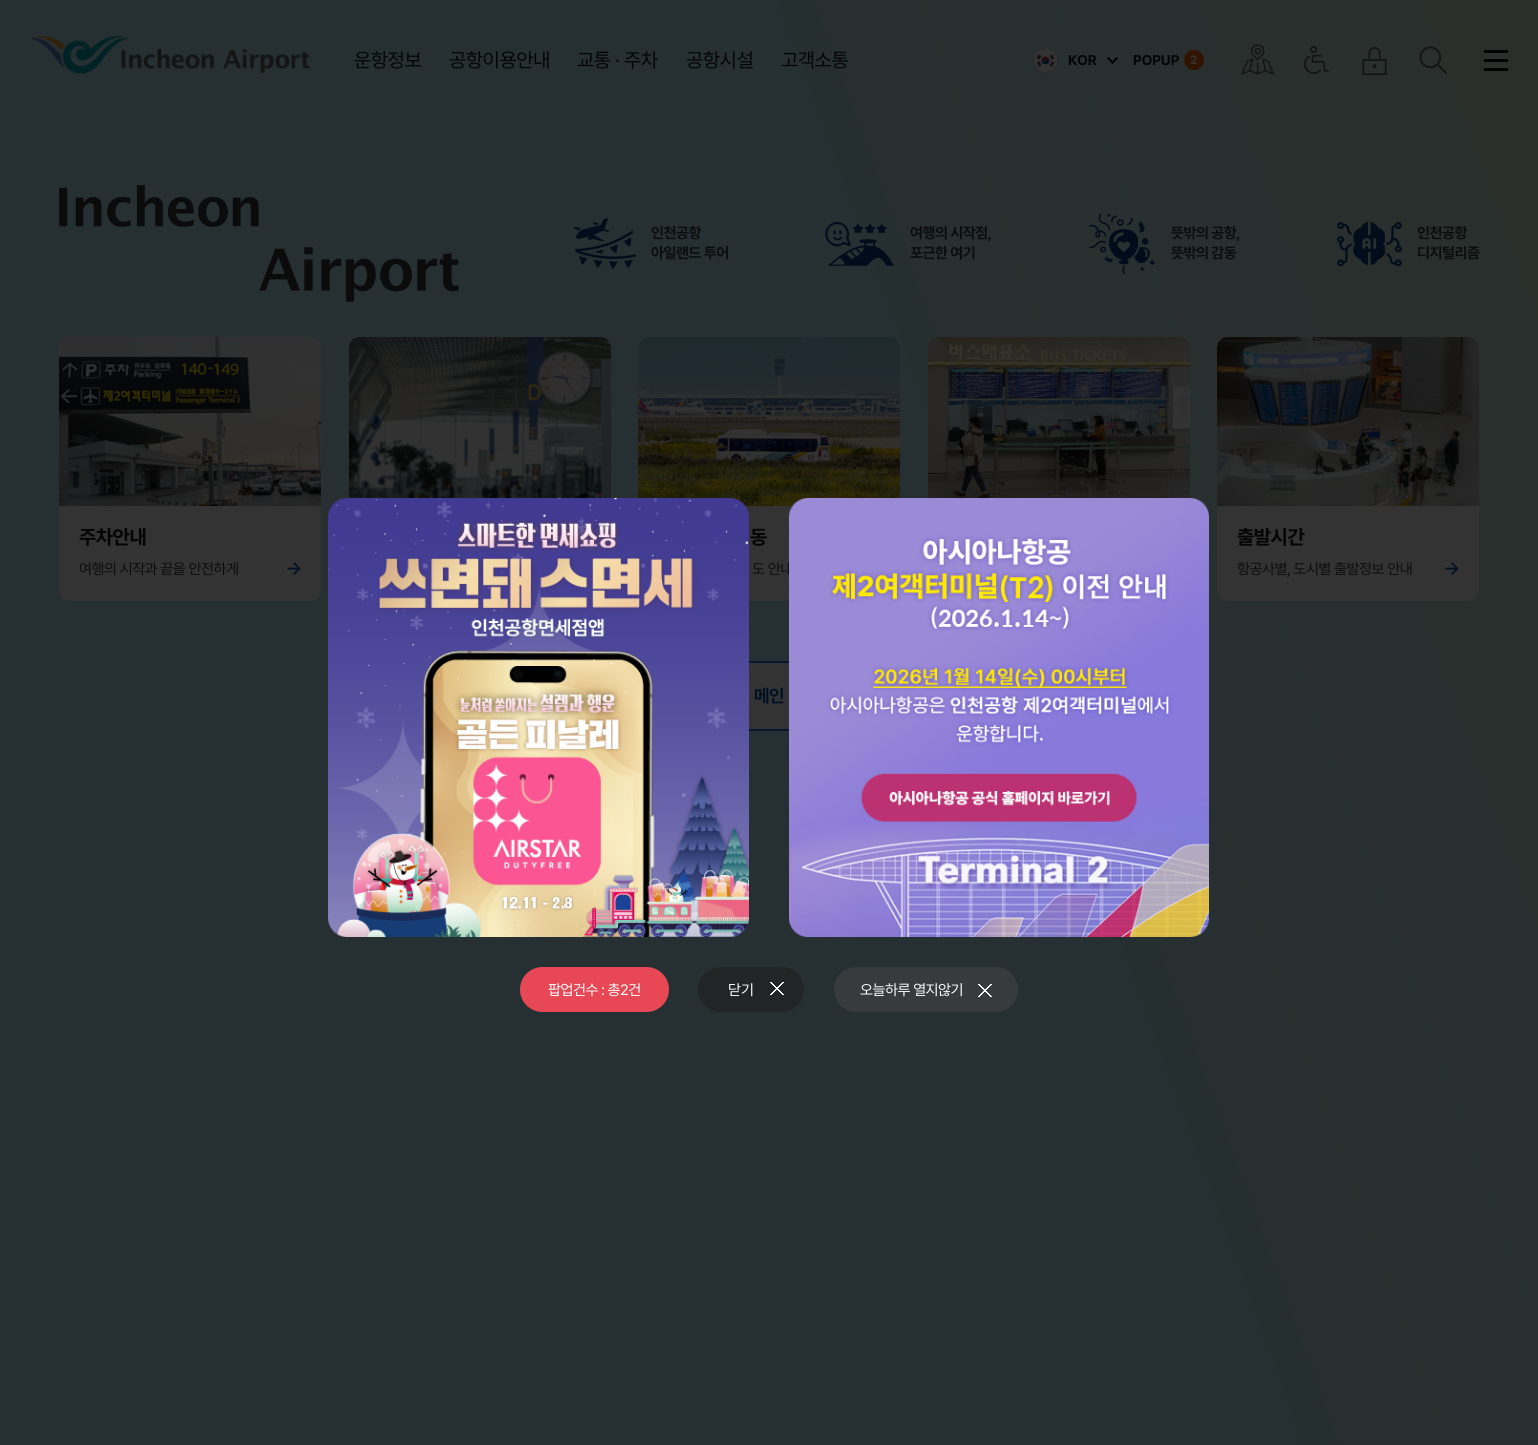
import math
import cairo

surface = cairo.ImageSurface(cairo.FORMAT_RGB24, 1538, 1445)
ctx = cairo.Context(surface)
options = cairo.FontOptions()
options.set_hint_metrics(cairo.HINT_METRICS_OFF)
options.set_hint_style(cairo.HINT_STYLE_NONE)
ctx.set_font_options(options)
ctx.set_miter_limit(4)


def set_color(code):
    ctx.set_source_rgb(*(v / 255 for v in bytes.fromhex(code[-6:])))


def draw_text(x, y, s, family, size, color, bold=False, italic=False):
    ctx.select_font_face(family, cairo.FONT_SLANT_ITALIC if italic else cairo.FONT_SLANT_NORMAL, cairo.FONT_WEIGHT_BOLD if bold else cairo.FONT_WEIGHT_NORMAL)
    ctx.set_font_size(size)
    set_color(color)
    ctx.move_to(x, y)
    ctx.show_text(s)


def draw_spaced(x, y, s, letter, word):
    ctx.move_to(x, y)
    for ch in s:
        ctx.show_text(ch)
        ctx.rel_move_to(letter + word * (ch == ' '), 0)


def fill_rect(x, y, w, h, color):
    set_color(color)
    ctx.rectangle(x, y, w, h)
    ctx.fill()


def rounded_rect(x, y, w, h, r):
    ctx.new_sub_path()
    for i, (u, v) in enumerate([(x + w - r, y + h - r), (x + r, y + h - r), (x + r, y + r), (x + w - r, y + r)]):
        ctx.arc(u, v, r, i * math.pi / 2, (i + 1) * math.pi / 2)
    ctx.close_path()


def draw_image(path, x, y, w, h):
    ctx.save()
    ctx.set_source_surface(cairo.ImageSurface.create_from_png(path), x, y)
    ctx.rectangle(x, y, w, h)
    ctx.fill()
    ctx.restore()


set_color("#ffffff")
ctx.paint()
gradient = cairo.LinearGradient(-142, 1054, 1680, 391)
gradient.add_color_stop_rgba(0.6, 0.149, 0.184, 0.192, 1)
gradient.add_color_stop_rgba(1, 0.165, 0.184, 0.169, 1)
ctx.set_source(gradient)
ctx.rectangle(0, 0, 1538, 1445)
ctx.fill()
draw_image("assets/img1.png", 30, 35, 280, 39)
ctx.select_font_face("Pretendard")
ctx.set_font_size(20)
set_color("#040404")
draw_spaced(354, 67, "운항정보", -0.5, 0)
draw_spaced(449, 67, "공항이용안내", -0.5, 0)
draw_spaced(577, 67, "교통 · 주차", -0.5, 0)
draw_spaced(686, 67, "공항시설", -0.5, 0)
draw_spaced(781, 67, "고객소통", -0.5, 0)
draw_image("assets/img2.png", 1033, 48, 25, 25)
ctx.arc(1045.5, 60.5, 12, 0, 2 * math.pi)
set_color("#2a2a2a")
ctx.set_line_width(1)
ctx.stroke()
draw_text(1068, 65, "KOR", "Pretendard", 14, "#040404", bold=True)
draw_image("assets/img3.png", 1107, 57, 11, 7)
draw_text(1133, 65, "POPUP", "Pretendard", 14, "#040404", bold=True)
set_color("#311400")
ctx.new_path()
ctx.arc(1194, 60, 10, 0, 2 * math.pi)
ctx.fill()
draw_text(1190, 64, "2", "Pretendard", 12, "#333333", bold=True)
draw_image("assets/img4.png", 1240, 44, 35, 32)
draw_image("assets/img5.png", 1304, 46, 25, 28)
draw_image("assets/img6.png", 1362, 47, 25, 28)
draw_image("assets/img7.png", 1419, 46, 28, 28)
draw_image("assets/img8.png", 1484, 50, 24, 21)
draw_image("assets/img9.png", 59, 185, 200, 42)
draw_image("assets/img10.png", 259, 247, 200, 55)
draw_image("assets/img11.png", 573, 218, 63, 51)
ctx.set_font_size(15)
set_color("#0c0c0c")
draw_spaced(651, 238, "인천공항", -0.5, 0)
draw_spaced(651, 258, "아일랜드 투어", -0.5, 0)
draw_image("assets/img12.png", 825, 221, 69, 45)
draw_spaced(910, 238, "여행의 시작점,", -0.5, 0)
draw_spaced(910, 258, "포근한 여기", -0.5, 0)
draw_image("assets/img13.png", 1089, 213, 67, 61)
draw_spaced(1171, 238, "뜻밖의 공항,", -0.5, 0)
draw_spaced(1171, 258, "뜻밖의 감동", -0.5, 0)
draw_image("assets/img14.png", 1337, 222, 65, 44)
draw_spaced(1417, 238, "인천공항", -0.5, 0)
draw_spaced(1417, 258, "디지털리즘", -0.5, 0)
set_color("#333333")
rounded_rect(59, 337, 262, 264, 10)
ctx.fill()
draw_image("assets/img15.png", 59, 337, 262, 169)
ctx.set_font_size(20)
set_color("#040404")
draw_spaced(79, 544, "주차안내", -0.5, 0)
ctx.select_font_face("Pretendard")
ctx.set_font_size(15)
set_color("#0c0c0c")
draw_spaced(79, 574, "여행의 시작과 끝을 안전하게", -0.5, 0)
draw_image("assets/img16.png", 287, 562, 14, 13)
set_color("#333333")
rounded_rect(349, 337, 262, 264, 10)
ctx.fill()
draw_image("assets/img17.png", 349, 337, 262, 161)
rounded_rect(638, 337, 262, 264, 10)
ctx.fill()
draw_image("assets/img18.png", 638, 337, 262, 169)
ctx.select_font_face("Pretendard", cairo.FONT_SLANT_NORMAL, cairo.FONT_WEIGHT_BOLD)
ctx.set_font_size(20)
set_color("#040404")
draw_spaced(750, 544, "동", -0.5, 0)
ctx.select_font_face("Pretendard")
ctx.set_font_size(15)
set_color("#0c0c0c")
draw_spaced(752, 574, "도 안내", -0.5, 0)
set_color("#333333")
rounded_rect(928, 337, 262, 264, 10)
ctx.fill()
draw_image("assets/img19.png", 928, 337, 262, 161)
rounded_rect(1217, 337, 262, 264, 10)
ctx.fill()
draw_image("assets/img20.png", 1217, 337, 262, 169)
ctx.select_font_face("Pretendard", cairo.FONT_SLANT_NORMAL, cairo.FONT_WEIGHT_BOLD)
ctx.set_font_size(20)
set_color("#040404")
draw_spaced(1237, 544, "출발시간", -0.5, 0)
ctx.select_font_face("Pretendard")
ctx.set_font_size(15)
set_color("#0c0c0c")
draw_spaced(1237, 574, "항공사별, 도시별 출발정보 안내", -0.5, 0)
draw_image("assets/img16.png", 1445, 562, 14, 13)
fill_rect(749, 663, 40, 66, "#333333")
ctx.rectangle(649, 662, 240, 68)
set_color("#04172e")
ctx.set_line_width(2)
ctx.stroke()
ctx.select_font_face("Pretendard", cairo.FONT_SLANT_NORMAL, cairo.FONT_WEIGHT_BOLD)
ctx.set_font_size(18)
set_color("#001126")
draw_spaced(754, 702, "메인", -0.5, 0)
draw_image("assets/img21.png", 328, 498, 421, 439)
draw_image("assets/img22.png", 789, 498, 420, 439)
set_color("#e84855")
rounded_rect(520, 967, 149, 45, 22.5)
ctx.fill()
ctx.select_font_face("Pretendard")
ctx.set_font_size(15)
set_color("#ffffff")
draw_spaced(548, 995, "팝업건수 : 총2건", -0.5, 0)
set_color("#222526")
rounded_rect(698, 967, 106, 45, 22.5)
ctx.fill()
draw_text(728, 995, "닫기", "Pretendard", 15, "#ffffff")
draw_image("assets/img23.png", 770, 982, 14, 13)
set_color("#373b3d")
rounded_rect(834, 967, 184, 45, 22.5)
ctx.fill()
set_color("#ffffff")
draw_spaced(860, 995, "오늘하루 열지않기", -0.5, 0)
draw_image("assets/img24.png", 978, 984, 14, 13)
surface.write_to_png("output.png")
